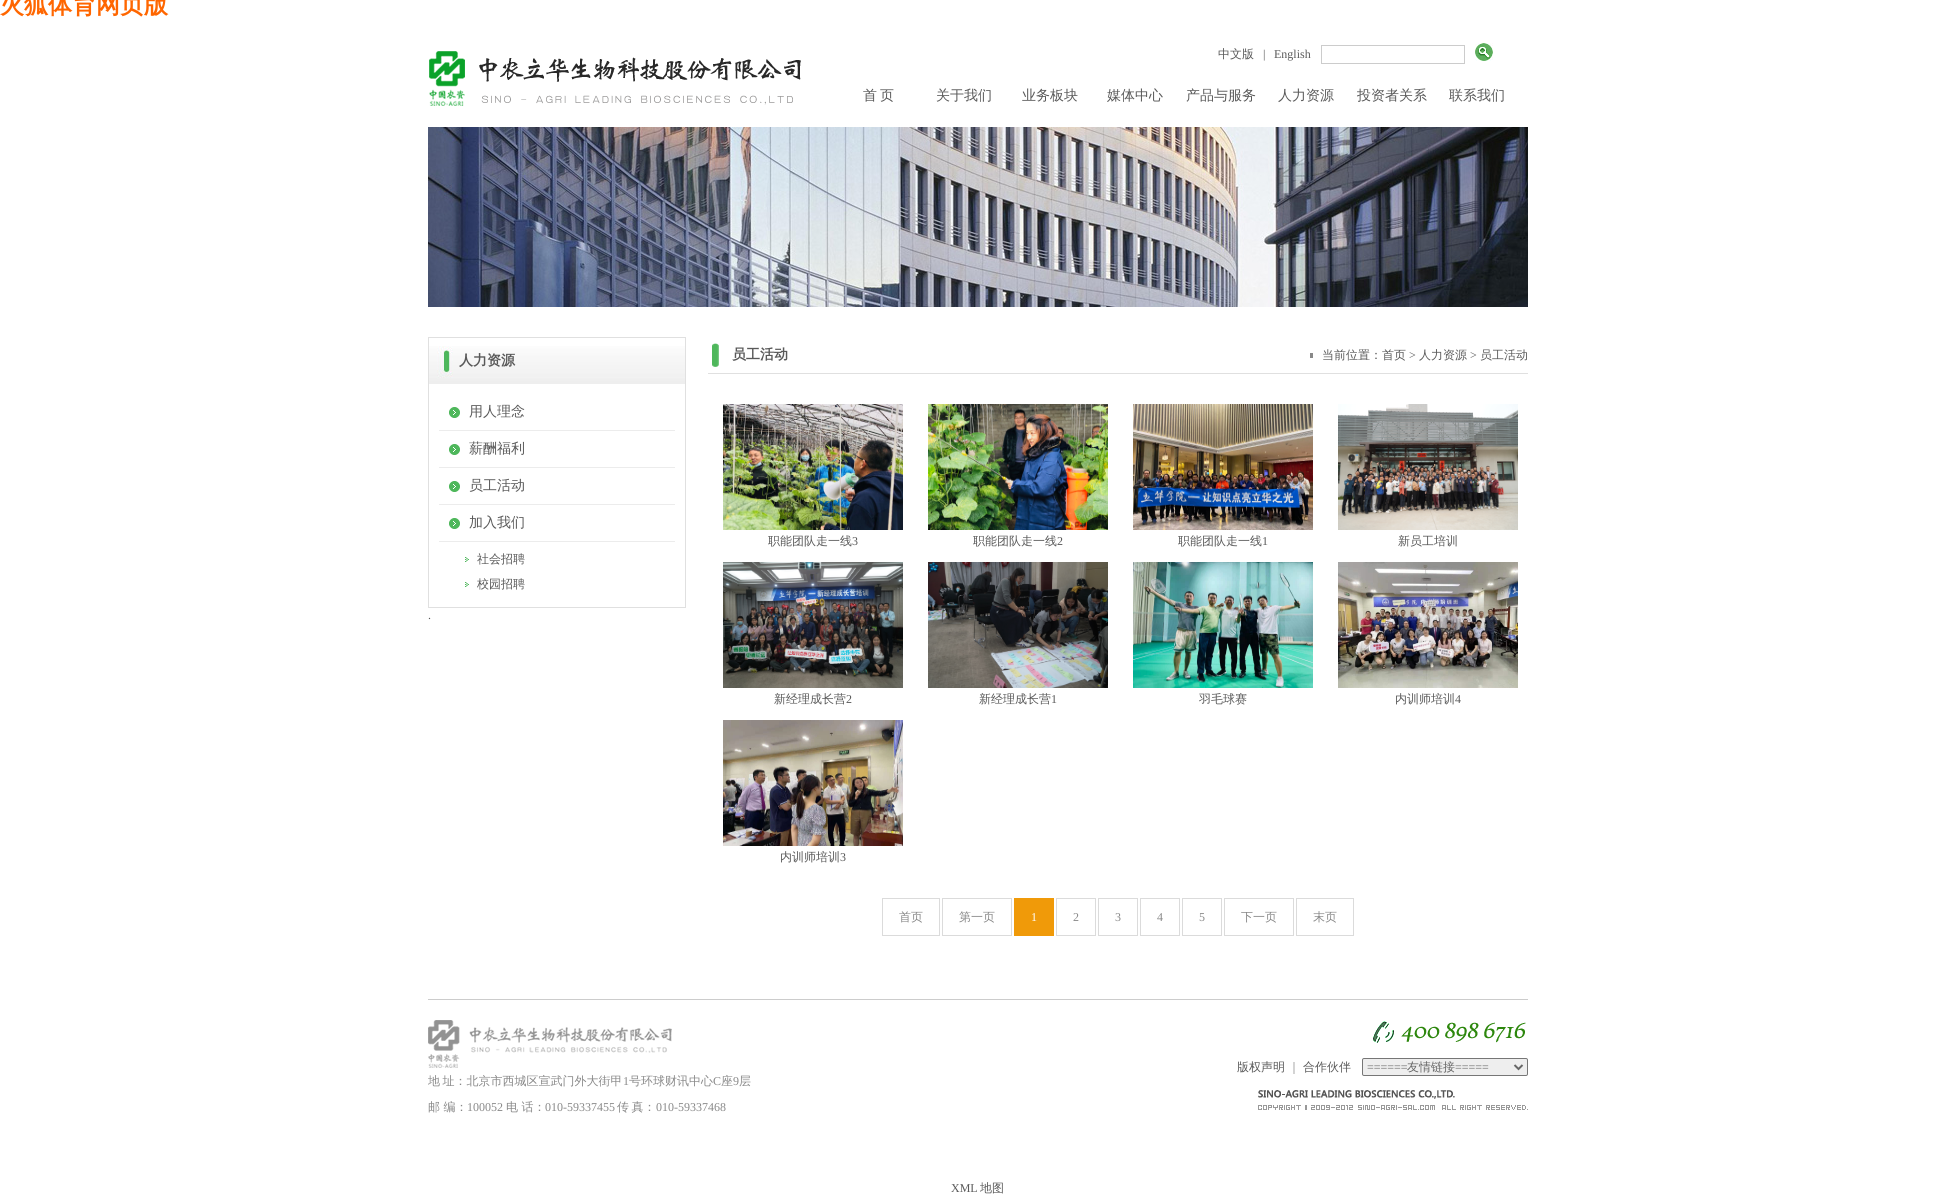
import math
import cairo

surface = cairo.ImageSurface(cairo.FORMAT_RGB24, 1955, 1202)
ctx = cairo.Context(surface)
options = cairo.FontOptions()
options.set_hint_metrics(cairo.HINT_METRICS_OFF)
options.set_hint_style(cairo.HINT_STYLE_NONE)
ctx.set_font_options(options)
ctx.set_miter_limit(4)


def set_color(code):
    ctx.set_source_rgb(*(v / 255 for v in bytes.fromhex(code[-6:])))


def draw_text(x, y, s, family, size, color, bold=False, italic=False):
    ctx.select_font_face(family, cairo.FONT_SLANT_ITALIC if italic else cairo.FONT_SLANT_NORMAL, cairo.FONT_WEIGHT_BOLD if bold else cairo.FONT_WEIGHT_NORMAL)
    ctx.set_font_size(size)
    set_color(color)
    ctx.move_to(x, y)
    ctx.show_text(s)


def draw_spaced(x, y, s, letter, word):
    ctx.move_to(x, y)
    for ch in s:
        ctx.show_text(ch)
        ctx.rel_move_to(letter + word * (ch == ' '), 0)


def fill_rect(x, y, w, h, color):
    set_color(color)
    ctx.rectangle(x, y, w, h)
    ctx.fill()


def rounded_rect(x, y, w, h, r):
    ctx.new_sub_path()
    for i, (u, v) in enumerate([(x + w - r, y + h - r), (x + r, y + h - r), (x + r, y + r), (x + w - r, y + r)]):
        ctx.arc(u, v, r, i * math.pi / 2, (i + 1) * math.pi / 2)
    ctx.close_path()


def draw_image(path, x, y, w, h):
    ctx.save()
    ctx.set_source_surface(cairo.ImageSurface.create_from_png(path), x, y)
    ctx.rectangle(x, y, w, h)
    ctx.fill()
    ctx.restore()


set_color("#ffffff")
ctx.paint()
draw_text(0, 13, "火狐体育网页版", "WenQuanYi Zen Hei", 24, "#ff6600", bold=True)
draw_image("assets/img1.png", 429, 51, 372, 55)
draw_text(1218, 58, "中文版", "WenQuanYi Zen Hei Medium", 12, "#595959")
draw_text(1263, 58, "|", "Liberation Serif", 12, "#595959")
draw_text(1274, 58, "English", "Liberation Serif", 12, "#595959")
ctx.rectangle(1321.5, 45.5, 143, 18)
set_color("#cccccc")
ctx.set_line_width(1)
ctx.stroke()
draw_image("assets/img2.png", 1475, 43, 18, 18)
draw_text(863, 100, "首", "WenQuanYi Zen Hei Medium", 14, "#595959")
draw_text(880, 100, "页", "WenQuanYi Zen Hei Medium", 14, "#595959")
draw_text(936, 100, "关于我们", "WenQuanYi Zen Hei Medium", 14, "#595959")
draw_text(1022, 100, "业务板块", "WenQuanYi Zen Hei Medium", 14, "#595959")
draw_text(1107, 100, "媒体中心", "WenQuanYi Zen Hei Medium", 14, "#595959")
draw_text(1186, 100, "产品与服务", "WenQuanYi Zen Hei Medium", 14, "#595959")
draw_text(1278, 100, "人力资源", "WenQuanYi Zen Hei Medium", 14, "#595959")
draw_text(1357, 100, "投资者关系", "WenQuanYi Zen Hei Medium", 14, "#595959")
draw_text(1449, 100, "联系我们", "WenQuanYi Zen Hei Medium", 14, "#595959")
draw_image("assets/img3.png", 428, 127, 1100, 180)
ctx.rectangle(428.5, 337.5, 257, 270)
set_color("#e0e0e0")
ctx.stroke()
draw_image("assets/img4.png", 429, 346, 256, 38)
draw_text(459, 365, "人力资源", "WenQuanYi Zen Hei", 14, "#595959", bold=True)
draw_image("assets/img5.png", 449, 407, 11, 11)
fill_rect(439, 430, 236, 1, "#ececec")
draw_text(469, 416, "用人理念", "WenQuanYi Zen Hei Medium", 14, "#595959")
draw_image("assets/img5.png", 449, 444, 11, 11)
fill_rect(439, 467, 236, 1, "#ececec")
draw_text(469, 453, "薪酬福利", "WenQuanYi Zen Hei Medium", 14, "#595959")
draw_image("assets/img5.png", 449, 481, 11, 11)
fill_rect(439, 504, 236, 1, "#ececec")
draw_text(469, 490, "员工活动", "WenQuanYi Zen Hei Medium", 14, "#595959")
draw_image("assets/img5.png", 449, 518, 11, 11)
fill_rect(439, 541, 236, 1, "#ececec")
draw_text(469, 527, "加入我们", "WenQuanYi Zen Hei Medium", 14, "#595959")
draw_image("assets/img6.png", 465, 557, 4, 5)
draw_text(477, 563, "社会招聘", "WenQuanYi Zen Hei Medium", 12, "#595959")
draw_image("assets/img6.png", 465, 582, 4, 5)
draw_text(477, 588, "校园招聘", "WenQuanYi Zen Hei Medium", 12, "#595959")
draw_text(428, 619, ".", "Liberation Serif", 12, "#595959")
fill_rect(708, 373, 820, 1, "#e0e0e0")
draw_image("assets/img7.png", 712, 343, 7, 24)
draw_text(732, 359, "员工活动", "WenQuanYi Zen Hei", 14, "#595959", bold=True)
fill_rect(1310, 353, 3, 5, "#888888")
draw_text(1322, 359, "当前位置：首页", "WenQuanYi Zen Hei Medium", 12, "#595959")
draw_text(1409, 359, ">", "Liberation Serif", 12, "#595959")
draw_text(1419, 359, "人力资源", "WenQuanYi Zen Hei Medium", 12, "#595959")
draw_text(1470, 359, ">", "Liberation Serif", 12, "#595959")
draw_text(1480, 359, "员工活动", "WenQuanYi Zen Hei Medium", 12, "#595959")
draw_image("assets/img8.png", 723, 404, 180, 126)
draw_text(768, 545, "职能团队走一线", "WenQuanYi Zen Hei Medium", 12, "#595959")
draw_text(852, 545, "3", "Liberation Serif", 12, "#595959")
draw_image("assets/img9.png", 928, 404, 180, 126)
draw_text(973, 545, "职能团队走一线", "WenQuanYi Zen Hei Medium", 12, "#595959")
draw_text(1057, 545, "2", "Liberation Serif", 12, "#595959")
draw_image("assets/img10.png", 1133, 404, 180, 126)
draw_text(1178, 545, "职能团队走一线", "WenQuanYi Zen Hei Medium", 12, "#595959")
draw_text(1262, 545, "1", "Liberation Serif", 12, "#595959")
draw_image("assets/img11.png", 1338, 404, 180, 126)
draw_text(1398, 545, "新员工培训", "WenQuanYi Zen Hei Medium", 12, "#595959")
draw_image("assets/img12.png", 723, 562, 180, 126)
draw_text(774, 703, "新经理成长营", "WenQuanYi Zen Hei Medium", 12, "#595959")
draw_text(846, 703, "2", "Liberation Serif", 12, "#595959")
draw_image("assets/img13.png", 928, 562, 180, 126)
draw_text(979, 703, "新经理成长营", "WenQuanYi Zen Hei Medium", 12, "#595959")
draw_text(1051, 703, "1", "Liberation Serif", 12, "#595959")
draw_image("assets/img14.png", 1133, 562, 180, 126)
draw_text(1199, 703, "羽毛球赛", "WenQuanYi Zen Hei Medium", 12, "#595959")
draw_image("assets/img15.png", 1338, 562, 180, 126)
draw_text(1395, 703, "内训师培训", "WenQuanYi Zen Hei Medium", 12, "#595959")
draw_text(1455, 703, "4", "Liberation Serif", 12, "#595959")
draw_image("assets/img16.png", 723, 720, 180, 126)
draw_text(780, 861, "内训师培训", "WenQuanYi Zen Hei Medium", 12, "#595959")
draw_text(840, 861, "3", "Liberation Serif", 12, "#595959")
ctx.rectangle(882.5, 898.5, 57, 37)
set_color("#dbdbdb")
ctx.stroke()
draw_text(899, 921, "首页", "WenQuanYi Zen Hei Medium", 12, "#898989")
ctx.rectangle(942.5, 898.5, 69, 37)
set_color("#dbdbdb")
ctx.stroke()
draw_text(959, 921, "第一页", "WenQuanYi Zen Hei Medium", 12, "#898989")
fill_rect(1014, 898, 40, 38, "#f09a09")
draw_text(1031, 921, "1", "Liberation Serif", 12, "#ffffff")
ctx.rectangle(1056.5, 898.5, 39, 37)
set_color("#dbdbdb")
ctx.stroke()
draw_text(1073, 921, "2", "Liberation Serif", 12, "#898989")
ctx.rectangle(1098.5, 898.5, 39, 37)
set_color("#dbdbdb")
ctx.stroke()
draw_text(1115, 921, "3", "Liberation Serif", 12, "#898989")
ctx.rectangle(1140.5, 898.5, 39, 37)
set_color("#dbdbdb")
ctx.stroke()
draw_text(1157, 921, "4", "Liberation Serif", 12, "#898989")
ctx.rectangle(1182.5, 898.5, 39, 37)
set_color("#dbdbdb")
ctx.stroke()
draw_text(1199, 921, "5", "Liberation Serif", 12, "#898989")
ctx.rectangle(1224.5, 898.5, 69, 37)
set_color("#dbdbdb")
ctx.stroke()
draw_text(1241, 921, "下一页", "WenQuanYi Zen Hei Medium", 12, "#898989")
ctx.rectangle(1296.5, 898.5, 57, 37)
set_color("#dbdbdb")
ctx.stroke()
draw_text(1313, 921, "末页", "WenQuanYi Zen Hei Medium", 12, "#898989")
fill_rect(428, 999, 1100, 1, "#cccccc")
draw_image("assets/img17.png", 1373, 1021, 153, 22)
draw_text(1237, 1071, "版权声明", "WenQuanYi Zen Hei Medium", 12, "#595959")
draw_text(1288, 1071, "｜", "WenQuanYi Zen Hei Medium", 12, "#898989")
draw_text(1303, 1071, "合作伙伴", "WenQuanYi Zen Hei Medium", 12, "#595959")
set_color("#eeeeee")
rounded_rect(1362.5, 1058.5, 165, 17, 1.5)
ctx.fill_preserve()
set_color("#767676")
ctx.stroke()
ctx.new_path()
ctx.move_to(1514.5, 1065)
ctx.line_to(1518.5, 1069)
ctx.line_to(1522.5, 1065)
set_color("#666666")
ctx.set_line_width(2)
ctx.stroke()
draw_text(1367, 1071, "======", "Liberation Serif", 12, "#666666")
draw_text(1407, 1071, "友情链接", "WenQuanYi Zen Hei Medium", 12, "#666666")
draw_text(1455, 1071, "=====", "Liberation Serif", 12, "#666666")
draw_image("assets/img18.png", 1258, 1090, 270, 20)
draw_image("assets/img19.png", 428, 1020, 244, 48)
ctx.select_font_face("WenQuanYi Zen Hei Medium")
set_color("#898989")
draw_spaced(428, 1085, "地 址：北京市西城区宣武门外大街甲", 0, -1)
draw_text(623, 1085, "1", "Liberation Serif", 12, "#898989")
draw_text(629, 1085, "号环球财讯中心", "WenQuanYi Zen Hei Medium", 12, "#898989")
draw_text(713, 1085, "C", "Liberation Serif", 12, "#898989")
draw_text(721, 1085, "座", "WenQuanYi Zen Hei Medium", 12, "#898989")
draw_text(733, 1085, "9", "Liberation Serif", 12, "#898989")
draw_text(739, 1085, "层", "WenQuanYi Zen Hei Medium", 12, "#898989")
draw_text(428, 1111, "邮 编：", "WenQuanYi Zen Hei Medium", 12, "#898989")
draw_text(467, 1111, "100052", "Liberation Serif", 12, "#898989")
draw_text(506, 1111, "电 话：", "WenQuanYi Zen Hei Medium", 12, "#898989")
draw_text(545, 1111, "010-59337455", "Liberation Serif", 12, "#898989")
ctx.select_font_face("WenQuanYi Zen Hei Medium")
draw_spaced(617, 1111, "传 真：", 0, -1)
draw_text(656, 1111, "010-59337468", "Liberation Serif", 12, "#898989")
draw_text(951, 1192, "XML", "Liberation Serif", 12, "#595959")
draw_text(980, 1192, "地图", "WenQuanYi Zen Hei Medium", 12, "#595959")
surface.write_to_png("output.png")
